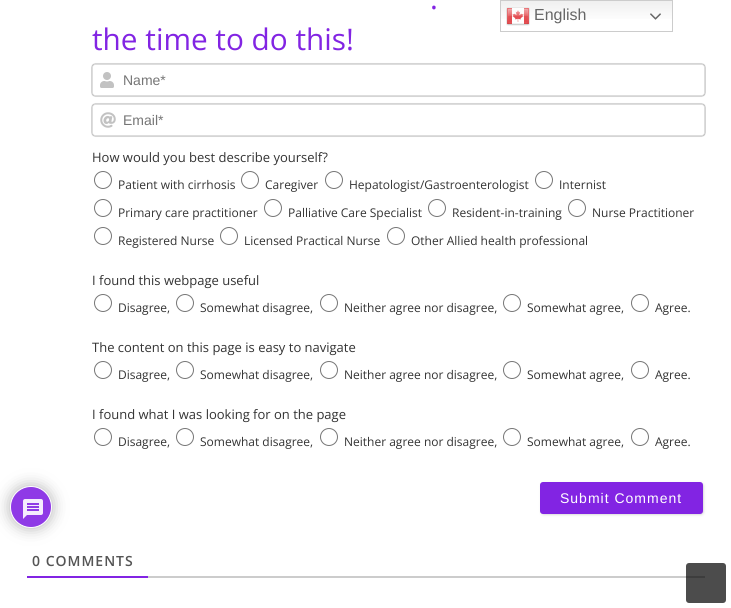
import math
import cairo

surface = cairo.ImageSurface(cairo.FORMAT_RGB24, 731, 608)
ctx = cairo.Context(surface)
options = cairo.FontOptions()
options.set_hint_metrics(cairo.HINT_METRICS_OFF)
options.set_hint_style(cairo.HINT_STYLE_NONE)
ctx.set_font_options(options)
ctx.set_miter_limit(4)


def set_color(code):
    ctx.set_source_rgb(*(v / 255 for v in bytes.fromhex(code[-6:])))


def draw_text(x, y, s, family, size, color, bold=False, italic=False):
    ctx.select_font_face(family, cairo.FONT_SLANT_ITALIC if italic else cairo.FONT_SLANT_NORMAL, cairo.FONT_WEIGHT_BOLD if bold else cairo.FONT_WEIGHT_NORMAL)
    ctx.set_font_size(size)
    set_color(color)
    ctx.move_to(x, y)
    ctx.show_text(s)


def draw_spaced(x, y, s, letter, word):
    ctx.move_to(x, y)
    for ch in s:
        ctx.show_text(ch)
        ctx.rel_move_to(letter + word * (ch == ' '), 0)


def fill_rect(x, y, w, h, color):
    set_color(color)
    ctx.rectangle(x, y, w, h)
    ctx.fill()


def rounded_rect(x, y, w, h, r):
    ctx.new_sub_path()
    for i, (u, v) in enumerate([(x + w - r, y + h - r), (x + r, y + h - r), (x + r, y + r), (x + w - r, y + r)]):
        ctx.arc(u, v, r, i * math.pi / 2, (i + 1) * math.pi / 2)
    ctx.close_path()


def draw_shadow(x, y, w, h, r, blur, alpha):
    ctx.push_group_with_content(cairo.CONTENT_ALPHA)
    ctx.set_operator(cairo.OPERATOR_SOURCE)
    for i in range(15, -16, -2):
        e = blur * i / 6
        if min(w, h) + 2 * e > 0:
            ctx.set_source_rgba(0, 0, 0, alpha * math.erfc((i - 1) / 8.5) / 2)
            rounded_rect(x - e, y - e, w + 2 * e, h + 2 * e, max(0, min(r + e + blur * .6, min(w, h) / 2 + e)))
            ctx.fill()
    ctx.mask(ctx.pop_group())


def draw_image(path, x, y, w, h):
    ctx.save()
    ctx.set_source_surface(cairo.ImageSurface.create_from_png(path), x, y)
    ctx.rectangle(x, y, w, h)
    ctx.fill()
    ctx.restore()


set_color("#ffffff")
ctx.paint()
draw_text(430, 9, ".", "Open Sans", 29.75, "#8224e3")
draw_text(92, 50, "the time to do this!", "Open Sans", 29.75, "#8224e3")
set_color("#555555")
draw_shadow(92, 64, 613, 32, 3, 0.5, 1)
set_color("#ffffff")
rounded_rect(92.5, 64.5, 612, 31, 2.5)
ctx.fill_preserve()
set_color("#dddddd")
ctx.set_line_width(1)
ctx.stroke()
draw_image("assets/img1.png", 100, 72, 14, 16)
draw_text(123, 85, "Name*", "Liberation Sans", 14, "#757575")
set_color("#555555")
draw_shadow(92, 104, 613, 32, 3, 0.5, 1)
set_color("#ffffff")
rounded_rect(92.5, 104.5, 612, 31, 2.5)
ctx.fill_preserve()
set_color("#dddddd")
ctx.stroke()
draw_image("assets/img2.png", 100, 112, 16, 16)
draw_text(123, 125, "Email*", "Liberation Sans", 14, "#757575")
draw_text(92, 162, "How would you best describe yourself?", "Open Sans", 13, "#333333")
ctx.new_path()
ctx.arc(103, 180, 8.5, 0, 2 * math.pi)
set_color("#767676")
ctx.stroke()
draw_text(118, 189, "Patient with cirrhosis", "Open Sans", 12, "#333333")
ctx.new_path()
ctx.arc(250, 180, 8.5, 0, 2 * math.pi)
set_color("#767676")
ctx.stroke()
draw_text(265, 189, "Caregiver", "Open Sans", 12, "#333333")
ctx.new_path()
ctx.arc(334, 180, 8.5, 0, 2 * math.pi)
set_color("#767676")
ctx.stroke()
draw_text(349, 189, "Hepatologist/Gastroenterologist", "Open Sans", 12, "#333333")
ctx.new_path()
ctx.arc(544, 180, 8.5, 0, 2 * math.pi)
set_color("#767676")
ctx.stroke()
draw_text(559, 189, "Internist", "Open Sans", 12, "#333333")
ctx.new_path()
ctx.arc(103, 208, 8.5, 0, 2 * math.pi)
set_color("#767676")
ctx.stroke()
draw_text(118, 217, "Primary care practitioner", "Open Sans", 12, "#333333")
ctx.new_path()
ctx.arc(273, 208, 8.5, 0, 2 * math.pi)
set_color("#767676")
ctx.stroke()
draw_text(288, 217, "Palliative Care Specialist", "Open Sans", 12, "#333333")
ctx.new_path()
ctx.arc(437, 208, 8.5, 0, 2 * math.pi)
set_color("#767676")
ctx.stroke()
draw_text(452, 217, "Resident-in-training", "Open Sans", 12, "#333333")
ctx.new_path()
ctx.arc(577, 208, 8.5, 0, 2 * math.pi)
set_color("#767676")
ctx.stroke()
draw_text(592, 217, "Nurse Practitioner", "Open Sans", 12, "#333333")
ctx.new_path()
ctx.arc(103, 236, 8.5, 0, 2 * math.pi)
set_color("#767676")
ctx.stroke()
draw_text(118, 245, "Registered Nurse", "Open Sans", 12, "#333333")
ctx.new_path()
ctx.arc(229, 236, 8.5, 0, 2 * math.pi)
set_color("#767676")
ctx.stroke()
draw_text(244, 245, "Licensed Practical Nurse", "Open Sans", 12, "#333333")
ctx.new_path()
ctx.arc(396, 236, 8.5, 0, 2 * math.pi)
set_color("#767676")
ctx.stroke()
draw_text(411, 245, "Other Allied health professional", "Open Sans", 12, "#333333")
draw_text(92, 285, "I found this webpage useful", "Open Sans", 13, "#333333")
ctx.new_path()
ctx.arc(103, 303, 8.5, 0, 2 * math.pi)
set_color("#767676")
ctx.stroke()
draw_text(118, 312, "Disagree,", "Open Sans", 12, "#333333")
ctx.new_path()
ctx.arc(185, 303, 8.5, 0, 2 * math.pi)
set_color("#767676")
ctx.stroke()
draw_text(200, 312, "Somewhat disagree,", "Open Sans", 12, "#333333")
ctx.new_path()
ctx.arc(329, 303, 8.5, 0, 2 * math.pi)
set_color("#767676")
ctx.stroke()
draw_text(344, 312, "Neither agree nor disagree,", "Open Sans", 12, "#333333")
ctx.new_path()
ctx.arc(512, 303, 8.5, 0, 2 * math.pi)
set_color("#767676")
ctx.stroke()
draw_text(527, 312, "Somewhat agree,", "Open Sans", 12, "#333333")
ctx.new_path()
ctx.arc(640, 303, 8.5, 0, 2 * math.pi)
set_color("#767676")
ctx.stroke()
draw_text(655, 312, "Agree.", "Open Sans", 12, "#333333")
draw_text(92, 352, "The content on this page is easy to navigate", "Open Sans", 13, "#333333")
ctx.new_path()
ctx.arc(103, 370, 8.5, 0, 2 * math.pi)
set_color("#767676")
ctx.stroke()
draw_text(118, 379, "Disagree,", "Open Sans", 12, "#333333")
ctx.new_path()
ctx.arc(185, 370, 8.5, 0, 2 * math.pi)
set_color("#767676")
ctx.stroke()
draw_text(200, 379, "Somewhat disagree,", "Open Sans", 12, "#333333")
ctx.new_path()
ctx.arc(329, 370, 8.5, 0, 2 * math.pi)
set_color("#767676")
ctx.stroke()
draw_text(344, 379, "Neither agree nor disagree,", "Open Sans", 12, "#333333")
ctx.new_path()
ctx.arc(512, 370, 8.5, 0, 2 * math.pi)
set_color("#767676")
ctx.stroke()
draw_text(527, 379, "Somewhat agree,", "Open Sans", 12, "#333333")
ctx.new_path()
ctx.arc(640, 370, 8.5, 0, 2 * math.pi)
set_color("#767676")
ctx.stroke()
draw_text(655, 379, "Agree.", "Open Sans", 12, "#333333")
draw_text(92, 419, "I found what I was looking for on the page", "Open Sans", 13, "#333333")
ctx.new_path()
ctx.arc(103, 437, 8.5, 0, 2 * math.pi)
set_color("#767676")
ctx.stroke()
draw_text(118, 446, "Disagree,", "Open Sans", 12, "#333333")
ctx.new_path()
ctx.arc(185, 437, 8.5, 0, 2 * math.pi)
set_color("#767676")
ctx.stroke()
draw_text(200, 446, "Somewhat disagree,", "Open Sans", 12, "#333333")
ctx.new_path()
ctx.arc(329, 437, 8.5, 0, 2 * math.pi)
set_color("#767676")
ctx.stroke()
draw_text(344, 446, "Neither agree nor disagree,", "Open Sans", 12, "#333333")
ctx.new_path()
ctx.arc(512, 437, 8.5, 0, 2 * math.pi)
set_color("#767676")
ctx.stroke()
draw_text(527, 446, "Somewhat agree,", "Open Sans", 12, "#333333")
ctx.new_path()
ctx.arc(640, 437, 8.5, 0, 2 * math.pi)
set_color("#767676")
ctx.stroke()
draw_text(655, 446, "Agree.", "Open Sans", 12, "#333333")
set_color("#bbbbbb")
draw_shadow(542, 484, 161, 30, 2, 1.5, 1)
set_color("#8224e3")
rounded_rect(540, 482, 163, 32, 3)
ctx.fill()
ctx.select_font_face("Liberation Sans")
ctx.set_font_size(14)
set_color("#ffffff")
draw_spaced(560, 503, "Submit Comment", 1, 0)
fill_rect(148, 576, 557, 2, "#cccccc")
fill_rect(27, 576, 121, 2, "#8224e3")
ctx.select_font_face("Open Sans SemiBold")
set_color("#555555")
draw_spaced(32, 566, "0 COMMENTS", 1, 0)
gradient = cairo.LinearGradient(587, 0, 587, 32)
gradient.add_color_stop_rgba(0, 0.937, 0.937, 0.937, 1)
gradient.add_color_stop_rgba(0.7, 1, 1, 1, 1)
ctx.set_source(gradient)
ctx.rectangle(501, 1, 171, 18)
ctx.fill()
ctx.rectangle(500.5, 0.5, 172, 31)
set_color("#cccccc")
ctx.stroke()
draw_image("assets/img3.png", 506, 7, 24, 19)
draw_text(534, 20, "English", "Liberation Sans", 16, "#666666")
draw_image("assets/img4.png", 650, 13, 11, 7)
set_color("#b3b3b3")
draw_shadow(10, 486, 42, 42, 21, 7.5, 1)
set_color("#8f3ae6")
ctx.arc(31, 507, 20.5, 0, 2 * math.pi)
ctx.fill_preserve()
set_color("#ffffff")
ctx.stroke()
draw_image("assets/img5.png", 23, 499, 20, 20)
ctx.set_source_rgba(0, 0, 0, 0.7)
rounded_rect(686, 563, 40, 40, 3)
ctx.fill()
surface.write_to_png("output.png")
